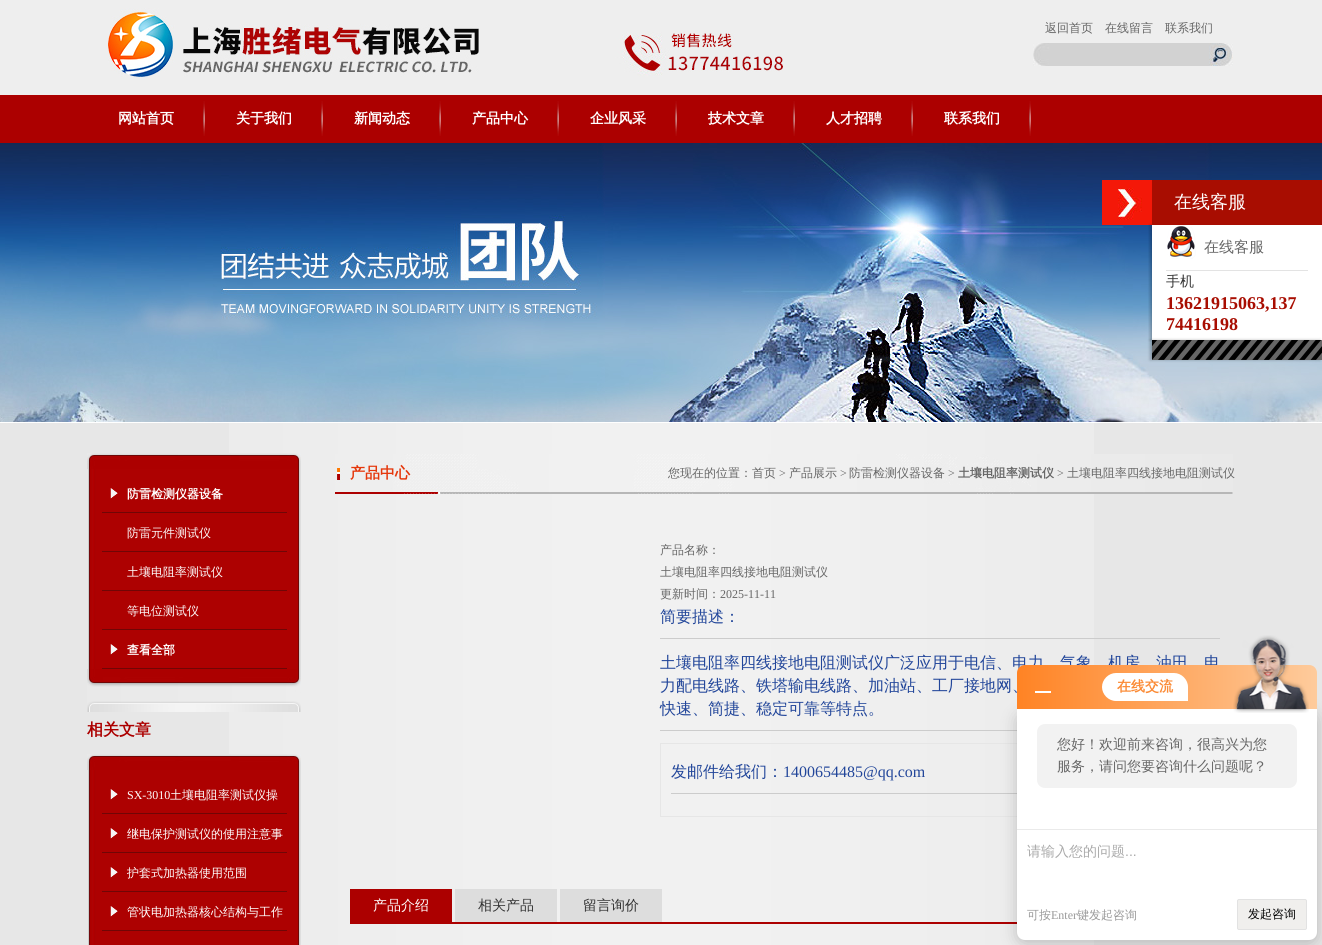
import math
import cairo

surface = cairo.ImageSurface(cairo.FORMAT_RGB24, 1322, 945)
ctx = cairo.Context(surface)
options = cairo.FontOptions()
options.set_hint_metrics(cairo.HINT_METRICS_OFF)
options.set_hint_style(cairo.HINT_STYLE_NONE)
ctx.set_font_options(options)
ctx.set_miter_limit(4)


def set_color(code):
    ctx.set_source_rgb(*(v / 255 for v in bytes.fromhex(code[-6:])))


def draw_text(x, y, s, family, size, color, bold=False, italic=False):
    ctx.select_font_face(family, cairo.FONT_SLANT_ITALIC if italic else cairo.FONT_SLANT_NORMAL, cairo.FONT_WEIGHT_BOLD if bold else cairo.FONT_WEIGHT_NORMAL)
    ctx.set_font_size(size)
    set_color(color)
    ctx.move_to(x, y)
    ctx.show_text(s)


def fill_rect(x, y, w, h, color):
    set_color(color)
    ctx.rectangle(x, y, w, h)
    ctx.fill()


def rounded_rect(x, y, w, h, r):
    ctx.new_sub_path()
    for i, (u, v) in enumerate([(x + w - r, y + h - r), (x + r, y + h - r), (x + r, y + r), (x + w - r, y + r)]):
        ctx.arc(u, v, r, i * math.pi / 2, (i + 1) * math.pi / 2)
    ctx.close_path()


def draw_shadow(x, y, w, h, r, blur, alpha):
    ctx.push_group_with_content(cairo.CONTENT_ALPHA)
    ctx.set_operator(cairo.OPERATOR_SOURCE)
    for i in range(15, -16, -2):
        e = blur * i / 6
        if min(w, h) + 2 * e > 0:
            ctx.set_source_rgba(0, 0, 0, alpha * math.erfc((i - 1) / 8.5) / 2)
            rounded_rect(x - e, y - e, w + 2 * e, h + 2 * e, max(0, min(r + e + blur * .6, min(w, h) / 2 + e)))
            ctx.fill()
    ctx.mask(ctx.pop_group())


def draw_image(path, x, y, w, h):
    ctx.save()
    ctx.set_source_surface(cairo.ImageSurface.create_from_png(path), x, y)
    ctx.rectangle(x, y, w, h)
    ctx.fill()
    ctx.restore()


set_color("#ffffff")
ctx.paint()
fill_rect(0, 0, 1322, 95, "#eeeeee")
draw_image("assets/img1.png", 108, 8, 675, 69)
draw_text(1045, 32, "返回首页", "WenQuanYi Zen Hei Medium", 12, "#666666")
draw_text(1105, 32, "在线留言", "WenQuanYi Zen Hei Medium", 12, "#666666")
draw_text(1165, 32, "联系我们", "WenQuanYi Zen Hei Medium", 12, "#666666")
draw_image("assets/img2.png", 1033, 43, 200, 23)
fill_rect(0, 95, 1322, 48, "#ac0000")
draw_image("assets/img3.png", 203, 101, 2, 35)
draw_text(118, 123, "网站首页", "WenQuanYi Zen Hei", 14, "#ffffff", bold=True)
draw_image("assets/img3.png", 321, 101, 2, 35)
draw_text(236, 123, "关于我们", "WenQuanYi Zen Hei", 14, "#ffffff", bold=True)
draw_image("assets/img3.png", 439, 101, 2, 35)
draw_text(354, 123, "新闻动态", "WenQuanYi Zen Hei", 14, "#ffffff", bold=True)
draw_image("assets/img3.png", 557, 101, 2, 35)
draw_text(472, 123, "产品中心", "WenQuanYi Zen Hei", 14, "#ffffff", bold=True)
draw_image("assets/img3.png", 675, 101, 2, 35)
draw_text(590, 123, "企业风采", "WenQuanYi Zen Hei", 14, "#ffffff", bold=True)
draw_image("assets/img3.png", 793, 101, 2, 35)
draw_text(708, 123, "技术文章", "WenQuanYi Zen Hei", 14, "#ffffff", bold=True)
draw_image("assets/img3.png", 911, 101, 2, 35)
draw_text(826, 123, "人才招聘", "WenQuanYi Zen Hei", 14, "#ffffff", bold=True)
draw_image("assets/img3.png", 1029, 101, 2, 35)
draw_text(944, 123, "联系我们", "WenQuanYi Zen Hei", 14, "#ffffff", bold=True)
draw_image("assets/img4.png", 0, 143, 1322, 279)
draw_image("assets/img5.png", 1102, 180, 50, 45)
fill_rect(1152, 225, 170, 115, "#ffffff")
ctx.save()
ctx.rectangle(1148, 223, 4, 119)
ctx.clip()
set_color("#000000")
draw_shadow(1150, 225, 170, 115, 0, 1.5, 0.25)
ctx.restore()
fill_rect(1152, 180, 170, 45, "#a80d01")
draw_text(1174, 208, "在线客服", "WenQuanYi Zen Hei Medium", 18, "#ffffff")
fill_rect(1166, 270, 142, 1, "#e3e3e3")
draw_image("assets/img6.png", 1167, 226, 29, 33)
draw_text(1204, 252, "在线客服", "WenQuanYi Zen Hei Medium", 15, "#666666")
draw_text(1166, 286, "手机", "WenQuanYi Zen Hei Medium", 14, "#333333")
draw_text(1166, 309, "13621915063,137", "Liberation Serif", 18, "#a80d01", bold=True)
draw_text(1166, 330, "74416198", "Liberation Serif", 18, "#a80d01", bold=True)
set_color("#000000")
draw_shadow(1150, 340, 170, 20, 0, 1.5, 0.25)
draw_image("assets/img7.png", 1152, 340, 170, 20)
fill_rect(0, 423, 1322, 522, "#e7e7e7")
draw_image("assets/img8.png", 229, 423, 865, 522)
draw_image("assets/img9.png", 87, 453, 214, 16)
draw_image("assets/img10.png", 88, 469, 213, 200)
draw_image("assets/img11.png", 110, 488, 8, 11)
fill_rect(102, 512, 185, 1, "#700606")
draw_text(127, 498, "防雷检测仪器设备", "WenQuanYi Zen Hei", 12, "#ffffff", bold=True)
fill_rect(102, 551, 185, 1, "#700606")
draw_text(127, 537, "防雷元件测试仪", "WenQuanYi Zen Hei Medium", 12, "#ffffff")
fill_rect(102, 590, 185, 1, "#700606")
draw_text(127, 576, "土壤电阻率测试仪", "WenQuanYi Zen Hei Medium", 12, "#ffffff")
fill_rect(102, 629, 185, 1, "#700606")
draw_text(127, 615, "等电位测试仪", "WenQuanYi Zen Hei Medium", 12, "#ffffff")
draw_image("assets/img11.png", 110, 644, 8, 11)
fill_rect(102, 668, 185, 1, "#700606")
draw_text(127, 654, "查看全部", "WenQuanYi Zen Hei", 12, "#ffffff", bold=True)
draw_image("assets/img12.png", 87, 669, 214, 43)
draw_text(87, 735, "相关文章", "WenQuanYi Zen Hei", 16, "#ac0000", bold=True)
draw_image("assets/img9.png", 87, 754, 214, 16)
draw_image("assets/img13.png", 88, 770, 213, 175)
draw_image("assets/img11.png", 110, 789, 8, 11)
fill_rect(102, 813, 185, 1, "#700606")
draw_text(127, 799, "SX-3010", "Liberation Serif", 12, "#ffffff")
draw_text(170, 799, "土壤电阻率测试仪操", "WenQuanYi Zen Hei Medium", 12, "#ffffff")
draw_image("assets/img11.png", 110, 828, 8, 11)
fill_rect(102, 852, 185, 1, "#700606")
draw_text(127, 838, "继电保护测试仪的使用注意事", "WenQuanYi Zen Hei Medium", 12, "#ffffff")
draw_image("assets/img11.png", 110, 867, 8, 11)
fill_rect(102, 891, 185, 1, "#700606")
draw_text(127, 877, "护套式加热器使用范围", "WenQuanYi Zen Hei Medium", 12, "#ffffff")
draw_image("assets/img11.png", 110, 906, 8, 11)
fill_rect(102, 930, 185, 1, "#700606")
draw_text(127, 916, "管状电加热器核心结构与工作", "WenQuanYi Zen Hei Medium", 12, "#ffffff")
draw_image("assets/img14.png", 335, 454, 898, 40)
draw_text(350, 478, "产品中心", "WenQuanYi Zen Hei", 15, "#e5370b", bold=True)
draw_text(668, 477, "您现在的位置：首页", "WenQuanYi Zen Hei Medium", 12, "#666666")
draw_text(779, 477, ">", "Liberation Serif", 12, "#666666")
draw_text(789, 477, "产品展示", "WenQuanYi Zen Hei Medium", 12, "#666666")
draw_text(840, 477, ">", "Liberation Serif", 12, "#666666")
draw_text(849, 477, "防雷检测仪器设备", "WenQuanYi Zen Hei Medium", 12, "#666666")
draw_text(948, 477, ">", "Liberation Serif", 12, "#666666")
draw_text(958, 477, "土壤电阻率测试仪", "WenQuanYi Zen Hei", 12, "#666666", bold=True)
draw_text(1057, 477, ">", "Liberation Serif", 12, "#666666")
draw_text(1067, 477, "土壤电阻率四线接地电阻测试仪", "WenQuanYi Zen Hei Medium", 12, "#666666")
draw_text(660, 554, "产品名称：", "WenQuanYi Zen Hei Medium", 12, "#666666")
draw_text(660, 576, "土壤电阻率四线接地电阻测试仪", "WenQuanYi Zen Hei Medium", 12, "#666666")
draw_text(660, 598, "更新时间：", "WenQuanYi Zen Hei Medium", 12, "#666666")
draw_text(720, 598, "2025-11-11", "Liberation Serif", 12, "#666666")
fill_rect(660, 638, 560, 1, "#cccccc")
draw_text(660, 622, "简要描述：", "WenQuanYi Zen Hei Medium", 16, "#22469a")
fill_rect(660, 730, 357, 1, "#cccccc")
draw_text(660, 668, "土壤电阻率四线接地电阻测试仪广泛应用于电信、电力、气象、机房、油田、电", "WenQuanYi Zen Hei Medium", 16, "#22469a")
draw_text(660, 691, "力配电线路、铁塔输电线路、加油站、工厂接地网、", "WenQuanYi Zen Hei Medium", 16, "#22469a")
draw_text(660, 714, "快速、简捷、稳定可靠等特点。", "WenQuanYi Zen Hei Medium", 16, "#22469a")
ctx.rectangle(660.5, 743.5, 559, 73)
set_color("#e6e6e6")
ctx.set_line_width(1)
ctx.stroke()
fill_rect(671, 793, 346, 1, "#cccccc")
draw_text(671, 777, "发邮件给我们：", "WenQuanYi Zen Hei Medium", 16, "#22469a")
draw_text(783, 777, "1400654485@qq.com", "Liberation Serif", 16, "#22469a")
fill_rect(350, 922, 667, 2, "#ac0000")
fill_rect(350, 889, 102, 33, "#ac0000")
draw_text(373, 910, "产品介绍", "WenQuanYi Zen Hei Medium", 14, "#ffffff")
fill_rect(455, 889, 102, 33, "#dddddd")
draw_text(478, 910, "相关产品", "WenQuanYi Zen Hei Medium", 14, "#333333")
fill_rect(560, 889, 102, 33, "#dddddd")
draw_text(583, 910, "留言询价", "WenQuanYi Zen Hei Medium", 14, "#333333")
set_color("#000000")
draw_shadow(1017, 713, 300, 231, 8, 8, 0.2)
gradient = cairo.LinearGradient(1017, 687, 1317, 687)
gradient.add_color_stop_rgba(0, 1, 0.514, 0.141, 1)
gradient.add_color_stop_rgba(1, 0.996, 0.796, 0.612, 1)
ctx.set_source(gradient)
ctx.new_path()
ctx.move_to(1025, 665)
ctx.line_to(1309, 665)
ctx.curve_to(1313.5, 665, 1317, 668.5, 1317, 673)
ctx.line_to(1317, 709)
ctx.line_to(1017, 709)
ctx.line_to(1017, 673)
ctx.curve_to(1017, 668.5, 1020.5, 665, 1025, 665)
ctx.close_path()
ctx.fill()
fill_rect(1035, 691, 16, 2, "#ffffff")
ctx.new_path()
ctx.move_to(1116, 673)
ctx.line_to(1174, 673)
ctx.curve_to(1181.5, 673, 1188, 679.5, 1188, 687)
ctx.line_to(1188, 701)
ctx.line_to(1116, 701)
ctx.curve_to(1108.5, 701, 1102, 694.5, 1102, 687)
ctx.curve_to(1102, 679.5, 1108.5, 673, 1116, 673)
ctx.close_path()
ctx.fill()
draw_text(1117, 691, "在线交流", "WenQuanYi Zen Hei", 14, "#fb8b36", bold=True)
set_color("#ffffff")
ctx.new_path()
ctx.move_to(1017, 709)
ctx.line_to(1317, 709)
ctx.line_to(1317, 932)
ctx.curve_to(1317, 936.5, 1313.5, 940, 1309, 940)
ctx.line_to(1025, 940)
ctx.curve_to(1020.5, 940, 1017, 936.5, 1017, 932)
ctx.close_path()
ctx.fill()
draw_image("assets/img15.png", 1233, 635, 76, 78)
set_color("#f2f2f2")
rounded_rect(1037, 724, 260, 64, 8)
ctx.fill()
draw_text(1057, 749, "您好！欢迎前来咨询，很高兴为您", "WenQuanYi Zen Hei Medium", 14, "#666666")
draw_text(1057, 771, "服务，请问您要咨询什么问题呢？", "WenQuanYi Zen Hei Medium", 14, "#666666")
fill_rect(1017, 829, 300, 1, "#eaeaea")
draw_text(1027, 856, "请输入您的问题", "WenQuanYi Zen Hei Medium", 14, "#aaaaaa")
draw_text(1125, 856, "...", "Liberation Sans", 14, "#aaaaaa")
draw_text(1027, 919, "可按", "WenQuanYi Zen Hei Medium", 12, "#999999")
draw_text(1051, 919, "Enter", "Liberation Serif", 12, "#999999")
draw_text(1077, 919, "键发起咨询", "WenQuanYi Zen Hei Medium", 12, "#999999")
set_color("#f0efed")
rounded_rect(1237.5, 899.5, 69, 30, 1.5)
ctx.fill_preserve()
set_color("#e2e2e2")
ctx.stroke()
draw_text(1248, 918, "发起咨询", "WenQuanYi Zen Hei Medium", 12, "#000000")
surface.write_to_png("output.png")
